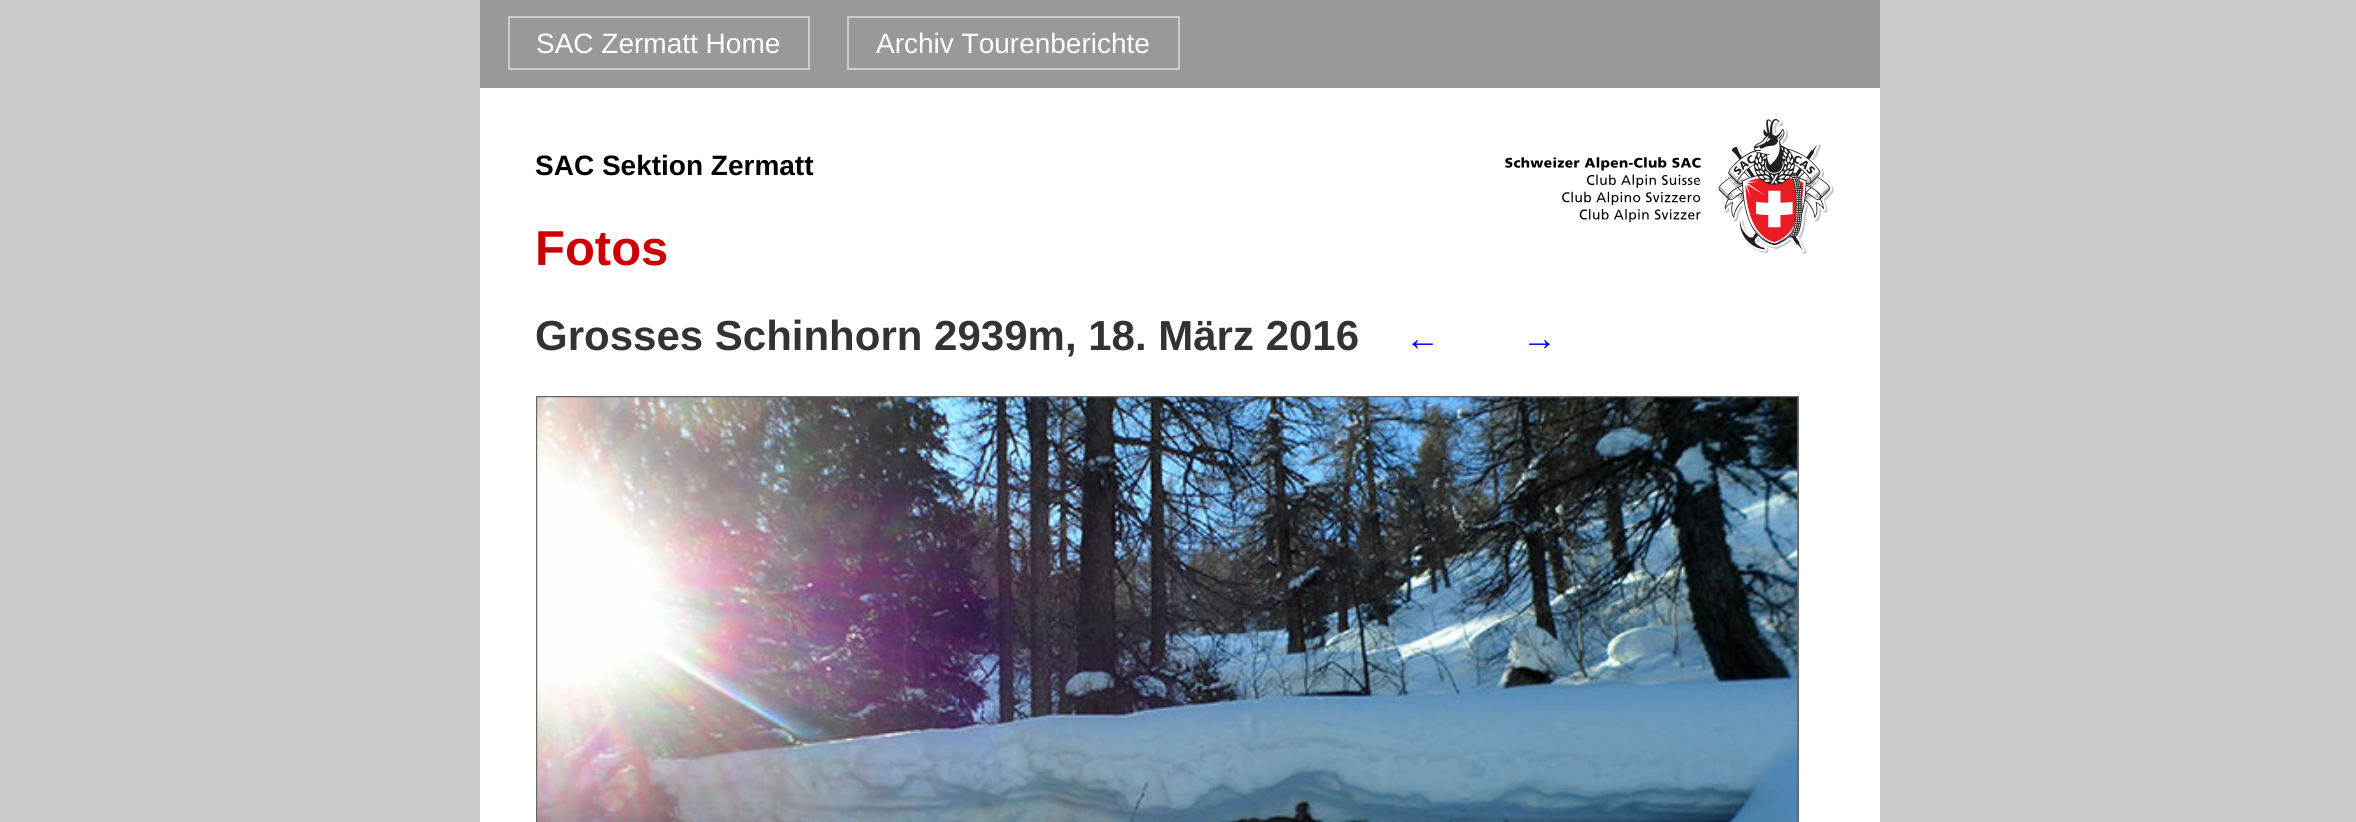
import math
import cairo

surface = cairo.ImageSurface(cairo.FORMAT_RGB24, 2356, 822)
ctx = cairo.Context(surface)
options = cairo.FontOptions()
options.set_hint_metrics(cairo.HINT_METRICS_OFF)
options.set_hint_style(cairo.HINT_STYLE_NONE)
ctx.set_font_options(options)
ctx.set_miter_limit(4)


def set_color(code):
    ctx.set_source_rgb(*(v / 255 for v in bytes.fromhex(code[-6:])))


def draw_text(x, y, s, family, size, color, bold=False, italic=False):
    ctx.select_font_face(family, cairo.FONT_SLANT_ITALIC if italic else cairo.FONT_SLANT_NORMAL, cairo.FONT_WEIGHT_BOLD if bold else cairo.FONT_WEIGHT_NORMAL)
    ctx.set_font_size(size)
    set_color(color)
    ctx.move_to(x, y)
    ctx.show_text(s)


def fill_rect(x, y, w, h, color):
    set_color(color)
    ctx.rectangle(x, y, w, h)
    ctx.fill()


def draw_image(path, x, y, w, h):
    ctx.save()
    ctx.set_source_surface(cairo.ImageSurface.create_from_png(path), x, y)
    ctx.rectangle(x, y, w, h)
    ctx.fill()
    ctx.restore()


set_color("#cccccc")
ctx.paint()
fill_rect(480, 88, 1400, 734, "#ffffff")
fill_rect(480, 0, 1400, 88, "#999999")
ctx.rectangle(509, 17, 300, 52)
set_color("#cccccc")
ctx.stroke()
draw_text(536, 53, "SAC Zermatt Home", "Liberation Sans", 28, "#ffffff")
ctx.rectangle(848, 17, 331, 52)
set_color("#cccccc")
ctx.stroke()
draw_text(876, 53, "Archiv Tourenberichte", "Liberation Sans", 28, "#ffffff")
draw_text(535, 175, "SAC Sektion Zermatt", "Liberation Sans", 28, "#000000", bold=True)
draw_image("assets/img1.png", 1505, 119, 329, 135)
draw_text(535, 265, "Fotos", "Liberation Sans", 49, "#cc0000", bold=True)
draw_text(535, 350, "Grosses Schinhorn 2939m, 18. März 2016", "Liberation Sans", 42, "#333333", bold=True)
draw_text(1405, 350, "←", "Liberation Sans", 35, "#0000ff")
draw_text(1522, 350, "→", "Liberation Sans", 35, "#0000ff")
ctx.rectangle(537, 397, 1261, 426)
set_color("#666666")
ctx.stroke()
draw_image("assets/img2.png", 537, 397, 1261, 425)
surface.write_to_png("output.png")
